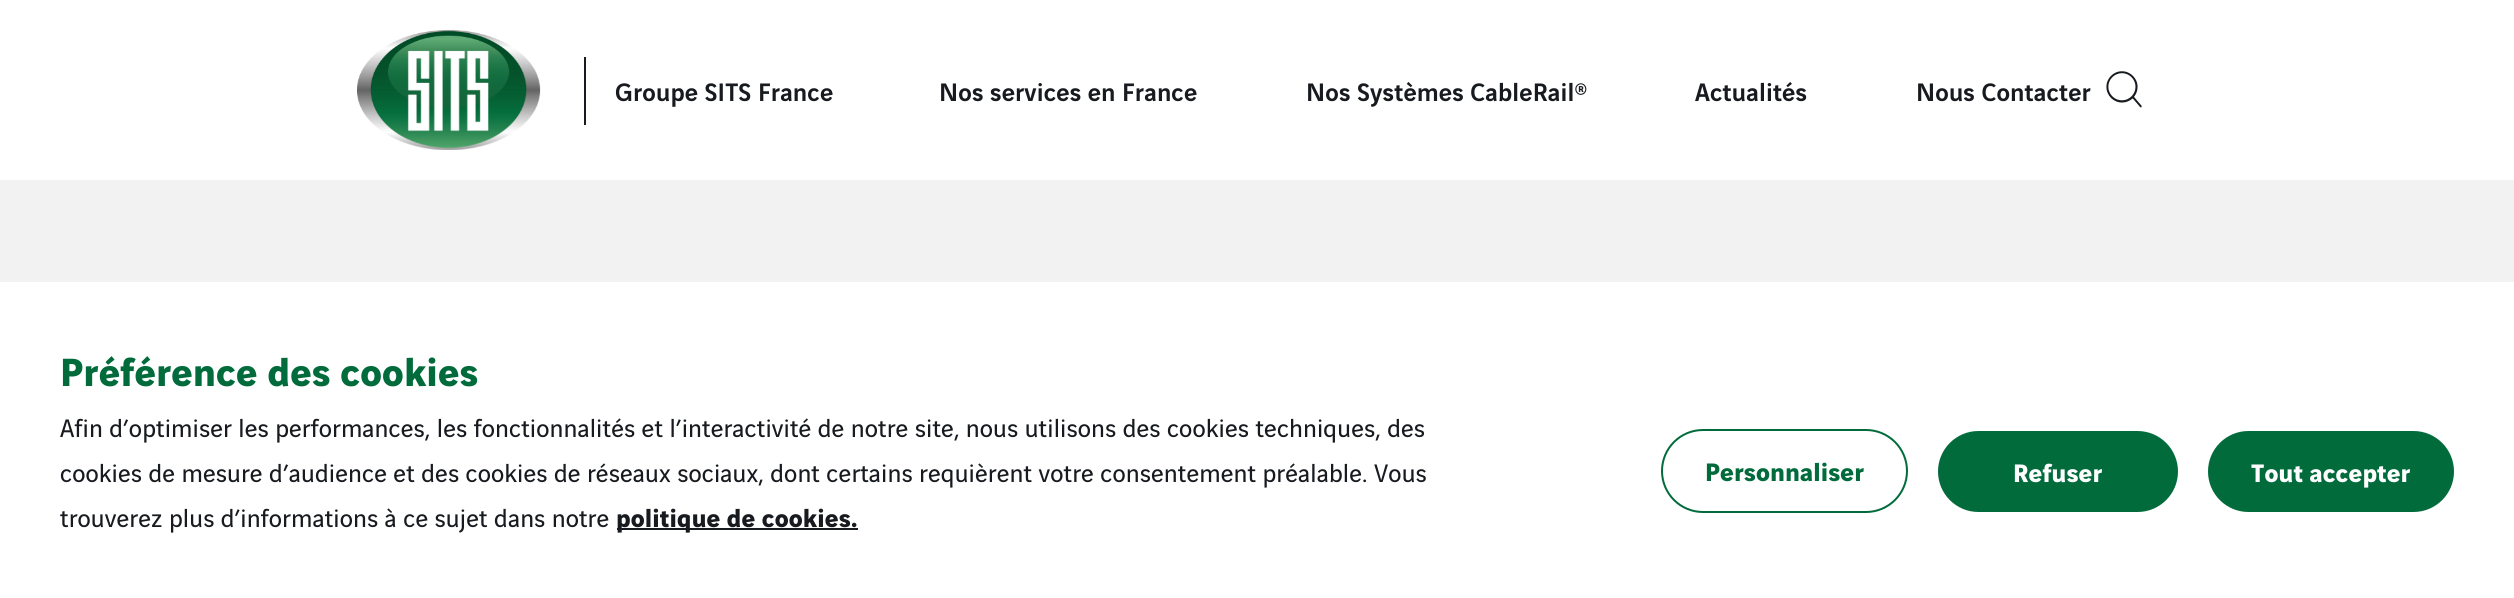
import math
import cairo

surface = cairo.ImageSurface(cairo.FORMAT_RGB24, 2514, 598)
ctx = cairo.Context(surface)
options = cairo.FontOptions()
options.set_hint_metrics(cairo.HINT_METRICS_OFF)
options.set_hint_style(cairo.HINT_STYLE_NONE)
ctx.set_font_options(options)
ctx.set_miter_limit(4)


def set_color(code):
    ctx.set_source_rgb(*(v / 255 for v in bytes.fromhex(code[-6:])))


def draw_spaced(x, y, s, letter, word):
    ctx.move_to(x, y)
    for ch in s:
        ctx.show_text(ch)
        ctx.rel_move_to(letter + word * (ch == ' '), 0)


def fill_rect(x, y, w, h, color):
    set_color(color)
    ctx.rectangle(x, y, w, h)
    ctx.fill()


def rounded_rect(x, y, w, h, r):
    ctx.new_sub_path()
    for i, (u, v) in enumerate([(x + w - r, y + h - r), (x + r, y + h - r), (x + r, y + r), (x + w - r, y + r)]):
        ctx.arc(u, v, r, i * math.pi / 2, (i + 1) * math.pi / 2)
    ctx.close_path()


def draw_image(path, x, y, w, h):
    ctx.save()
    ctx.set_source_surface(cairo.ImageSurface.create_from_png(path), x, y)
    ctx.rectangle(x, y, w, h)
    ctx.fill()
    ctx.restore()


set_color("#ffffff")
ctx.paint()
draw_image("assets/img1.png", 357, 30, 184, 120)
fill_rect(584, 57, 2, 68, "#171a1e")
ctx.select_font_face("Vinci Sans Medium")
ctx.set_font_size(27)
draw_spaced(615, 101, "Groupe SITS France", 0.15, 0)
draw_spaced(939, 101, "Nos services en France", 0.15, 0)
draw_spaced(1306, 101, "Nos Systèmes CableRail®", 0.15, 0)
draw_spaced(1695, 101, "Actualités", 0.15, 0)
draw_spaced(1916, 101, "Nous Contacter", 0.15, 0)
draw_image("assets/img2.png", 2106, 71, 36, 37)
fill_rect(0, 180, 2514, 102, "#f2f2f2")
ctx.select_font_face("Vinci Sans", cairo.FONT_SLANT_NORMAL, cairo.FONT_WEIGHT_BOLD)
ctx.set_font_size(42)
set_color("#016b3c")
draw_spaced(60, 386, "Préférence des cookies", 0.15, 0)
ctx.select_font_face("Vinci Sans")
ctx.set_font_size(27)
set_color("#171a1e")
draw_spaced(60, 437, "Afin d’optimiser les performances, les fonctionnalités et l’interactivité de notre site, nous utilisons des cookies techniques, des", 0.15, 0)
draw_spaced(60, 482, "cookies de mesure d’audience et des cookies de réseaux sociaux, dont certains requièrent votre consentement préalable. Vous", 0.15, 0)
draw_spaced(60, 527, "trouverez plus d’informations à ce sujet dans notre", 0.15, 0)
fill_rect(617, 528, 241, 2, "#171a1e")
ctx.select_font_face("Vinci Sans", cairo.FONT_SLANT_NORMAL, cairo.FONT_WEIGHT_BOLD)
draw_spaced(616, 527, "politique de cookies.", 0.15, 0)
rounded_rect(1662, 430, 245, 82, 41)
set_color("#016b3c")
ctx.stroke()
draw_spaced(1705, 481, "Personnaliser", 0.15, 0)
rounded_rect(1939, 432, 238, 79, 39.5)
ctx.fill_preserve()
ctx.stroke()
set_color("#ffffff")
draw_spaced(2013, 482, "Refuser", 0.15, 0)
set_color("#016b3c")
rounded_rect(2209, 432, 244, 79, 39.5)
ctx.fill_preserve()
ctx.stroke()
set_color("#ffffff")
draw_spaced(2251, 482, "Tout accepter", 0.15, 0)
surface.write_to_png("output.png")
